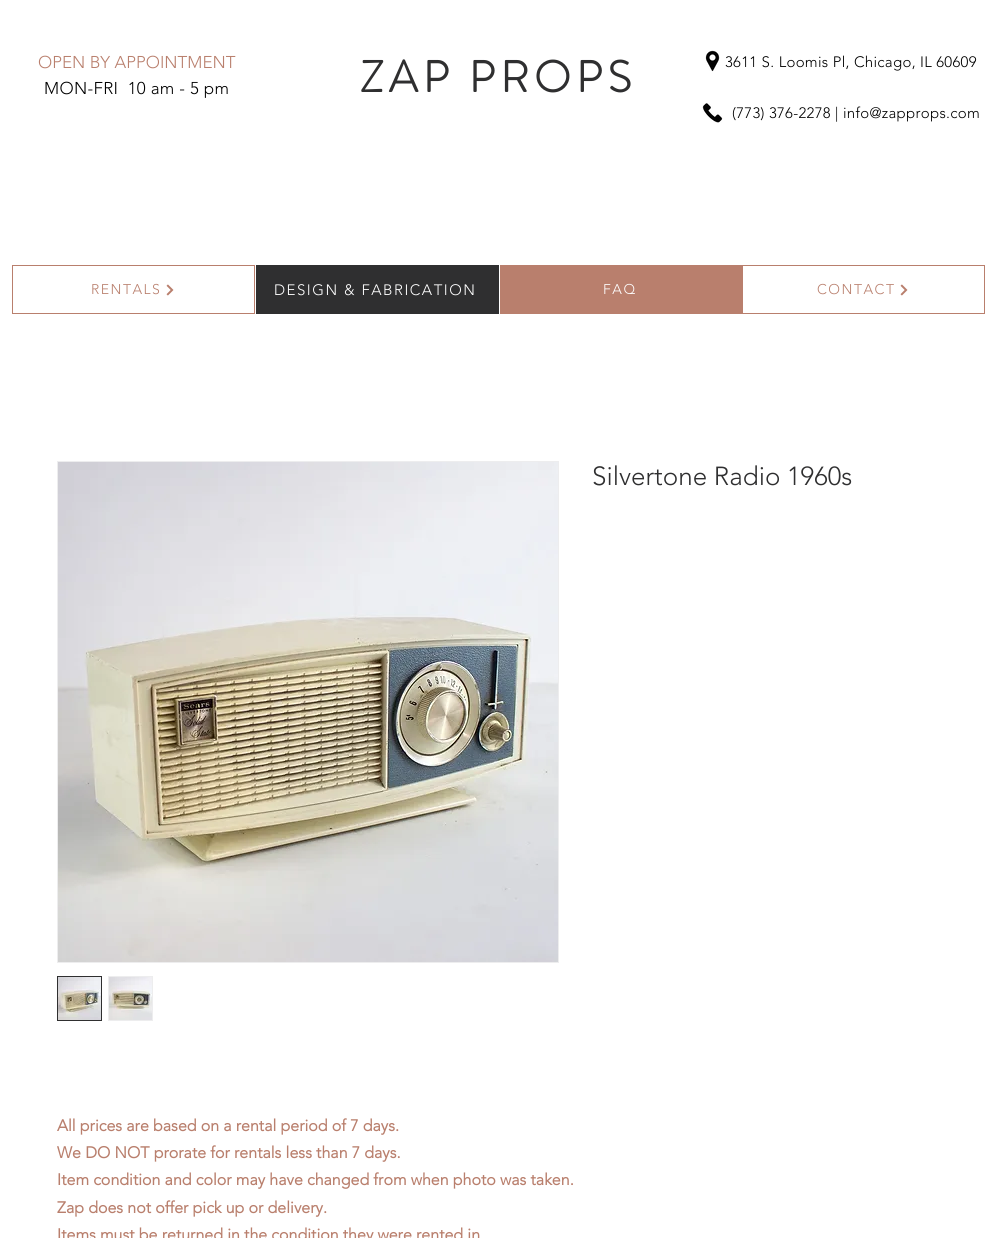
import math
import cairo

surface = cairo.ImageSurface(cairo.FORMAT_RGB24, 1004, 1238)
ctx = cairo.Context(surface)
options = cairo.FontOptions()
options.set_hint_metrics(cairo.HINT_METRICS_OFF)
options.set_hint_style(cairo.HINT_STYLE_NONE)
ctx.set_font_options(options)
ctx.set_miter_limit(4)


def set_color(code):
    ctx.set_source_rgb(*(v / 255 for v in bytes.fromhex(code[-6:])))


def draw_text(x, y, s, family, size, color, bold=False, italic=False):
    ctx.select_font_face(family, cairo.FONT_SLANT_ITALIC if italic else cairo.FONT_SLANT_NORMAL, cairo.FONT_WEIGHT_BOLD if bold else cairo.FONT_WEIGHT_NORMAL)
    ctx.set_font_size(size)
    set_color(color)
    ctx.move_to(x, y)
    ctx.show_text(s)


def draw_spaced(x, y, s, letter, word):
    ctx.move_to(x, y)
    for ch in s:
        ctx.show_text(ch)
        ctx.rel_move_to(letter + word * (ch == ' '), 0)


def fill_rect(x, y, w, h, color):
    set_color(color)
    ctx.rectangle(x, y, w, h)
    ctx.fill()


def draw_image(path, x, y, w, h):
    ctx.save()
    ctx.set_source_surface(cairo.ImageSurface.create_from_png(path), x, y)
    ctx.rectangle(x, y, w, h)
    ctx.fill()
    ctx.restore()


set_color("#ffffff")
ctx.paint()
draw_text(38, 68, "OPEN BY APPOINTMENT", "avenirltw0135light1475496 Light", 17, "#b97f6d")
set_color("#000000")
draw_spaced(44, 94, "MON-FRI  10 am - 5 pm", 0.3, 0)
ctx.select_font_face("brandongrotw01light", cairo.FONT_SLANT_NORMAL, cairo.FONT_WEIGHT_BOLD)
ctx.set_font_size(44)
set_color("#2f2f30")
draw_spaced(360, 92, "ZAP PROPS", 5.25, 0)
draw_image("assets/img1.png", 705, 50, 15, 22)
ctx.select_font_face("avenirltw0135light1475496 Light")
ctx.set_font_size(15)
set_color("#000000")
draw_spaced(725, 67, "3611 S. Loomis Pl, Chicago, IL 60609", 0.3, 0)
draw_image("assets/img2.png", 702, 103, 21, 20)
draw_spaced(732, 118, "(773) 376-2278 | info@zapprops.com", 0.3, 0)
ctx.rectangle(12.5, 265.5, 242, 48)
set_color("#b97f6d")
ctx.set_line_width(1)
ctx.stroke()
ctx.set_font_size(14)
draw_spaced(91, 294, "RENTALS", 1.5, 0)
draw_image("assets/img3.png", 166, 284, 8, 12)
fill_rect(256, 265, 243, 49, "#2f2f30")
ctx.set_font_size(15)
set_color("#ffffff")
draw_spaced(274, 295, "DESIGN & FABRICATION", 1.5, 0)
fill_rect(500, 265, 242, 49, "#b97f6d")
ctx.set_font_size(14)
set_color("#ffffff")
draw_spaced(603, 294, "FAQ", 1.5, 0)
ctx.rectangle(742.5, 265.5, 242, 48)
set_color("#b97f6d")
ctx.stroke()
draw_spaced(817, 294, "CONTACT", 1.5, 0)
draw_image("assets/img3.png", 900, 284, 8, 12)
ctx.rectangle(57.5, 461.5, 501, 501)
set_color("#ededee")
ctx.stroke()
draw_image("assets/img4.png", 58, 462, 500, 500)
ctx.rectangle(57.5, 976.5, 44, 44)
set_color("#2f2f30")
ctx.stroke()
draw_image("assets/img5.png", 58, 977, 43, 43)
ctx.rectangle(108.5, 976.5, 44, 44)
set_color("#ededee")
ctx.stroke()
draw_image("assets/img6.png", 109, 977, 43, 43)
draw_text(592, 485, "Silvertone Radio 1960s", "avenirltw0135light1475496 Light", 26, "#2f2f30")
draw_text(57, 1131, "All prices are based on a rental period of 7 days.", "avenirltw0135light1475496", 16, "#b97f6d", bold=True)
draw_text(57, 1158, "We DO NOT prorate for rentals less than 7 days.", "avenirltw0135light1475496", 16, "#b97f6d", bold=True)
draw_text(57, 1185, "Item condition and color may have changed from when photo was taken.", "avenirltw0135light1475496", 16, "#b97f6d", bold=True)
draw_text(57, 1213, "Zap does not offer pick up or delivery.", "avenirltw0135light1475496", 16, "#b97f6d", bold=True)
draw_text(57, 1240, "Items must be returned in the condition they were rented in", "avenirltw0135light1475496", 16, "#b97f6d", bold=True)
surface.write_to_png("output.png")
